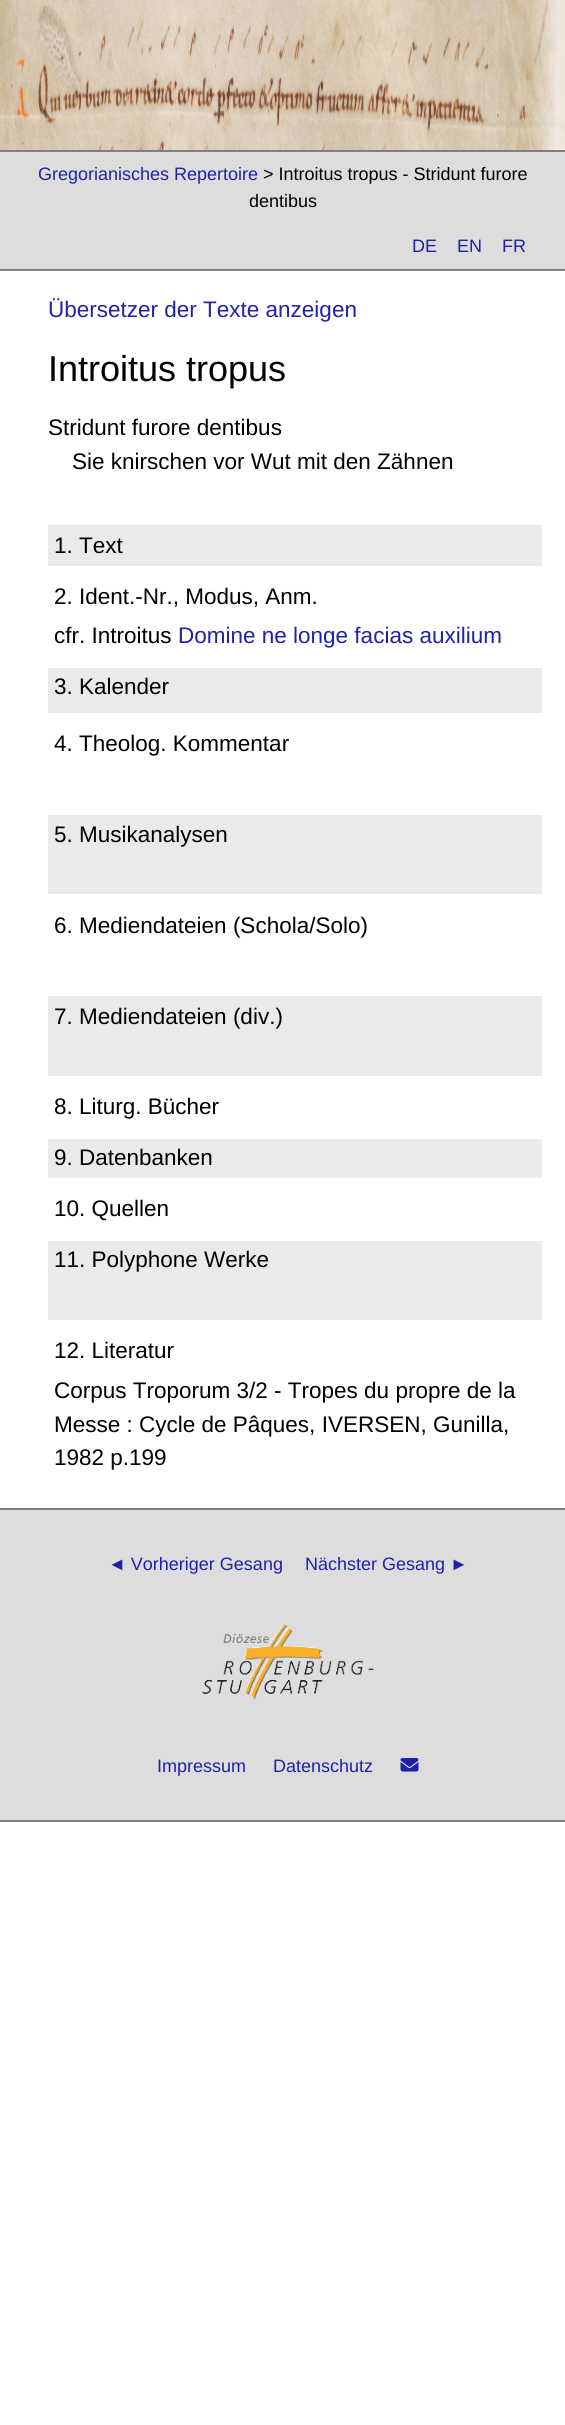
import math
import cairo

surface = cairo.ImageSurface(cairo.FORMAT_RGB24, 565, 2425)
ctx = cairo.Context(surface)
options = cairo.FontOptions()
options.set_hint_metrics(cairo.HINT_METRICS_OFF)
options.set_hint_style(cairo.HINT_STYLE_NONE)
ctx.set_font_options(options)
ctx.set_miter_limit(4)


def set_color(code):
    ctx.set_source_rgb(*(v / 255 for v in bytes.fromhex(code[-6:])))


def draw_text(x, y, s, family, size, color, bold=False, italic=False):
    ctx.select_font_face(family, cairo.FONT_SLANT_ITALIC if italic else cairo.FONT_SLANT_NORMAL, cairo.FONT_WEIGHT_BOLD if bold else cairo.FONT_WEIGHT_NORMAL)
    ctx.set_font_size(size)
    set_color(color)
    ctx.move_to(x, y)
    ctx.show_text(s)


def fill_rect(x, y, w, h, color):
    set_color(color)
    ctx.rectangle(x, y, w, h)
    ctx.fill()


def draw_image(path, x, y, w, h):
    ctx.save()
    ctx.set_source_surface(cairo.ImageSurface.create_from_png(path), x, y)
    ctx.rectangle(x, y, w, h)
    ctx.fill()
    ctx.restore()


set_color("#ffffff")
ctx.paint()
draw_image("assets/img1.png", 0, 0, 565, 150)
fill_rect(0, 152, 565, 117, "#dddddd")
fill_rect(0, 150, 565, 2, "#808080")
fill_rect(0, 269, 565, 2, "#808080")
draw_text(38, 180, "Gregorianisches Repertoire", "Liberation Sans", 18, "#1e22aa")
draw_text(263, 180, "> Introitus tropus - Stridunt furore", "Liberation Sans", 18, "#000000")
draw_text(249, 207, "dentibus", "Liberation Sans", 18, "#000000")
draw_text(412, 252, "DE", "Liberation Sans", 18, "#1e22aa")
draw_text(457, 252, "EN", "Liberation Sans", 18, "#1e22aa")
draw_text(502, 252, "FR", "Liberation Sans", 18, "#1e22aa")
draw_text(48, 317, "Übersetzer der Texte anzeigen", "Liberation Sans", 22.5, "#1e22aa")
draw_text(48, 381, "Introitus tropus", "Liberation Sans", 36, "#000000")
draw_text(48, 435, "Stridunt furore dentibus", "Liberation Sans", 22.5, "#000000")
draw_text(72, 469, "Sie knirschen vor Wut mit den Zähnen", "Liberation Sans", 22.5, "#000000")
fill_rect(48, 525, 494, 41, "#eaeaea")
draw_text(54, 553, "1. Text", "Liberation Sans", 22.5, "#000000")
draw_text(54, 604, "2. Ident.-Nr., Modus, Anm.", "Liberation Sans", 22.5, "#000000")
draw_text(54, 643, "cfr. Introitus", "Liberation Sans", 22.5, "#000000")
draw_text(178, 643, "Domine ne longe facias auxilium", "Liberation Sans", 22.5, "#1e22aa")
fill_rect(48, 668, 494, 45, "#eaeaea")
draw_text(54, 694, "3. Kalender", "Liberation Sans", 22.5, "#000000")
draw_text(54, 751, "4. Theolog. Kommentar", "Liberation Sans", 22.5, "#000000")
fill_rect(48, 815, 494, 79, "#eaeaea")
draw_text(54, 842, "5. Musikanalysen", "Liberation Sans", 22.5, "#000000")
draw_text(54, 933, "6. Mediendateien (Schola/Solo)", "Liberation Sans", 22.5, "#000000")
fill_rect(48, 996, 494, 80, "#eaeaea")
draw_text(54, 1024, "7. Mediendateien (div.)", "Liberation Sans", 22.5, "#000000")
draw_text(54, 1114, "8. Liturg. Bücher", "Liberation Sans", 22.5, "#000000")
fill_rect(48, 1139, 494, 39, "#eaeaea")
draw_text(54, 1165, "9. Datenbanken", "Liberation Sans", 22.5, "#000000")
draw_text(54, 1216, "10. Quellen", "Liberation Sans", 22.5, "#000000")
fill_rect(48, 1241, 494, 79, "#eaeaea")
draw_text(54, 1267, "11. Polyphone Werke", "Liberation Sans", 22.5, "#000000")
draw_text(54, 1358, "12. Literatur", "Liberation Sans", 22.5, "#000000")
draw_text(54, 1398, "Corpus Troporum 3/2 - Tropes du propre de la", "Liberation Sans", 22.5, "#000000")
draw_text(54, 1432, "Messe : Cycle de Pâques, IVERSEN, Gunilla,", "Liberation Sans", 22.5, "#000000")
draw_text(54, 1465, "1982 p.199", "Liberation Sans", 22.5, "#000000")
fill_rect(0, 1510, 565, 310, "#dddddd")
fill_rect(0, 1508, 565, 2, "#808080")
fill_rect(0, 1820, 565, 2, "#808080")
draw_text(108, 1570, "◄ Vorheriger Gesang", "Liberation Sans", 18, "#1e22aa")
draw_text(305, 1570, "Nächster Gesang ►", "Liberation Sans", 18, "#1e22aa")
draw_image("assets/img2.png", 202, 1624, 172, 76)
draw_text(157, 1772, "Impressum", "Liberation Sans", 18, "#1e22aa")
draw_text(273, 1772, "Datenschutz", "Liberation Sans", 18, "#1e22aa")
draw_image("assets/img3.png", 400, 1758, 19, 14)
surface.write_to_png("output.png")
